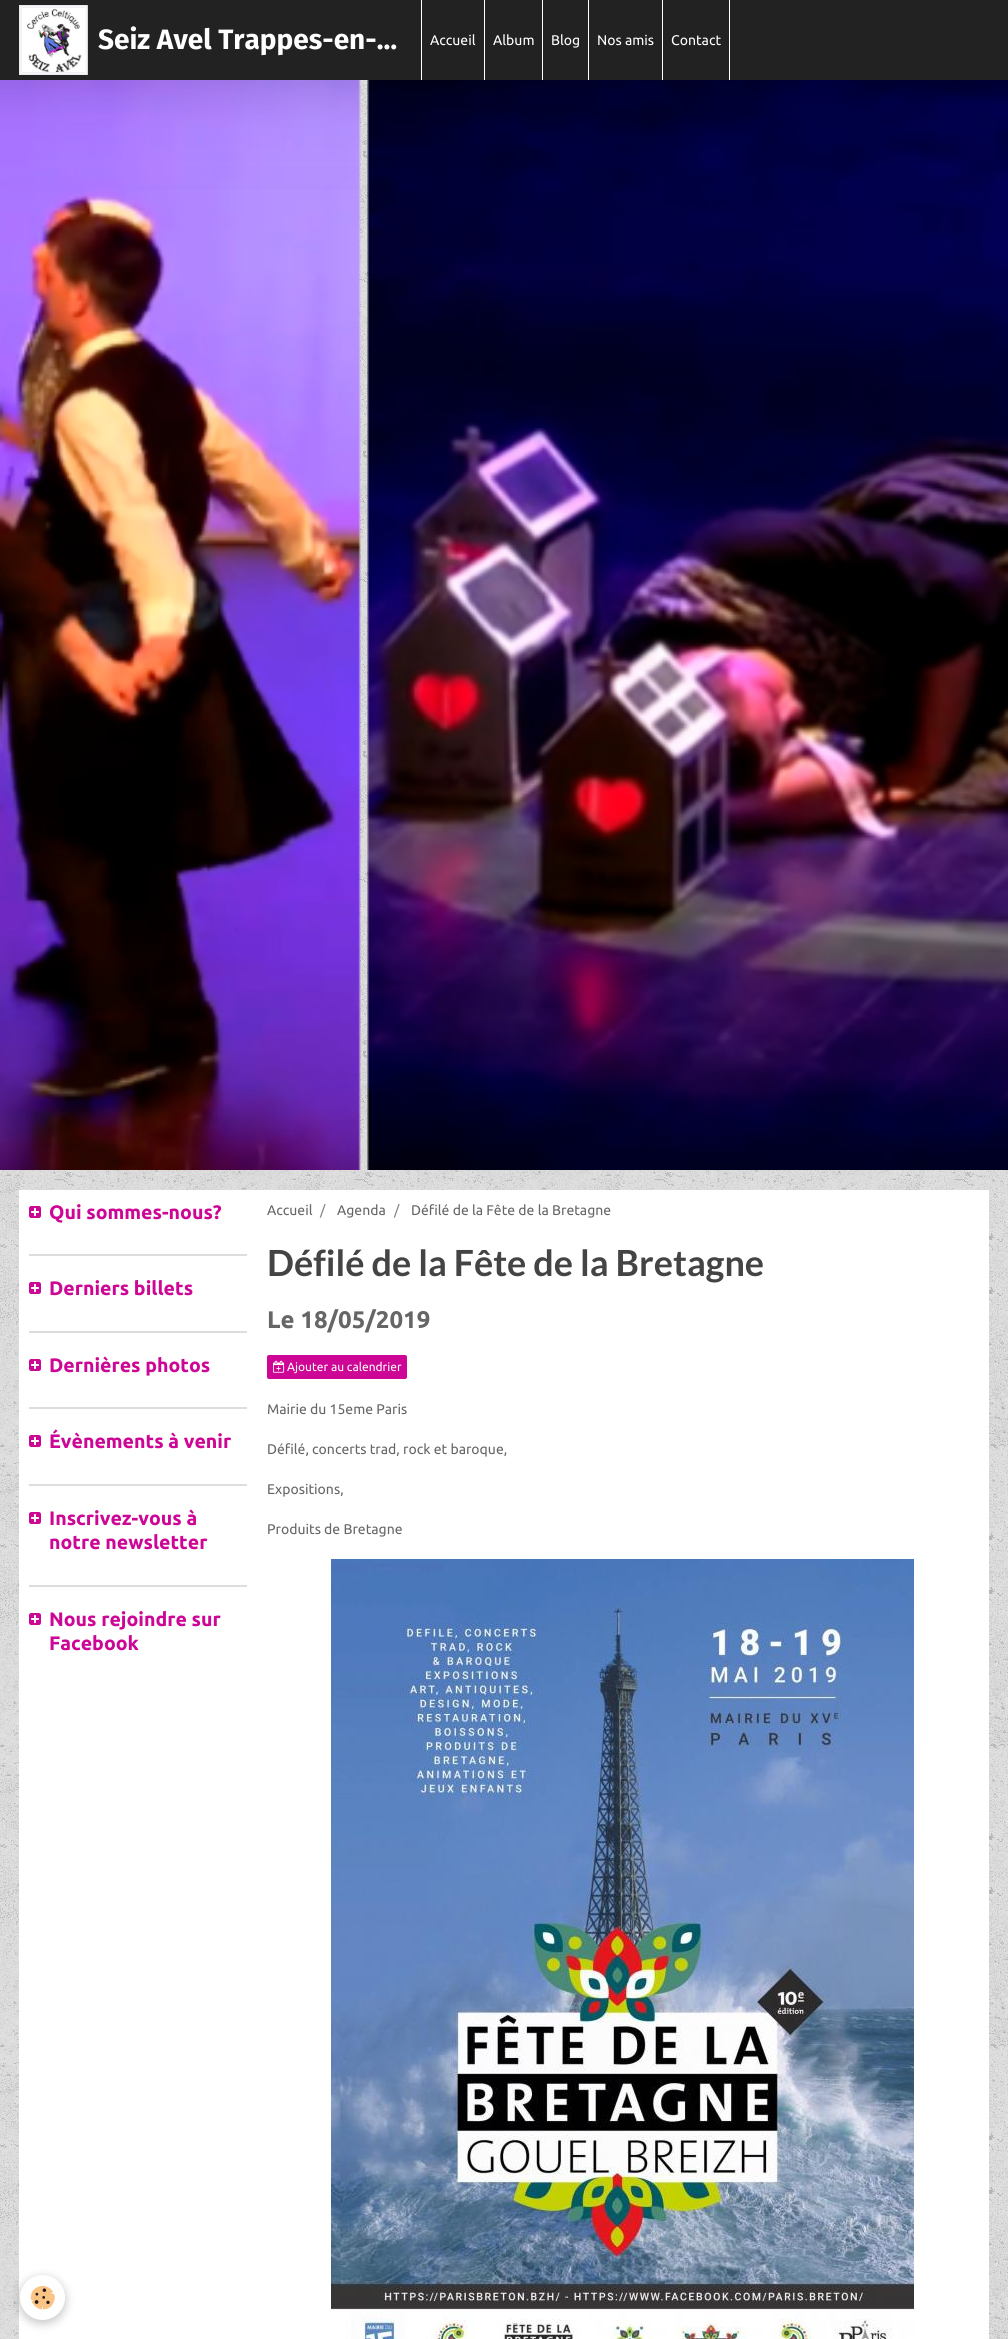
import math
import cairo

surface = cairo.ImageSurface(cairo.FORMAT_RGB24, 1008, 2339)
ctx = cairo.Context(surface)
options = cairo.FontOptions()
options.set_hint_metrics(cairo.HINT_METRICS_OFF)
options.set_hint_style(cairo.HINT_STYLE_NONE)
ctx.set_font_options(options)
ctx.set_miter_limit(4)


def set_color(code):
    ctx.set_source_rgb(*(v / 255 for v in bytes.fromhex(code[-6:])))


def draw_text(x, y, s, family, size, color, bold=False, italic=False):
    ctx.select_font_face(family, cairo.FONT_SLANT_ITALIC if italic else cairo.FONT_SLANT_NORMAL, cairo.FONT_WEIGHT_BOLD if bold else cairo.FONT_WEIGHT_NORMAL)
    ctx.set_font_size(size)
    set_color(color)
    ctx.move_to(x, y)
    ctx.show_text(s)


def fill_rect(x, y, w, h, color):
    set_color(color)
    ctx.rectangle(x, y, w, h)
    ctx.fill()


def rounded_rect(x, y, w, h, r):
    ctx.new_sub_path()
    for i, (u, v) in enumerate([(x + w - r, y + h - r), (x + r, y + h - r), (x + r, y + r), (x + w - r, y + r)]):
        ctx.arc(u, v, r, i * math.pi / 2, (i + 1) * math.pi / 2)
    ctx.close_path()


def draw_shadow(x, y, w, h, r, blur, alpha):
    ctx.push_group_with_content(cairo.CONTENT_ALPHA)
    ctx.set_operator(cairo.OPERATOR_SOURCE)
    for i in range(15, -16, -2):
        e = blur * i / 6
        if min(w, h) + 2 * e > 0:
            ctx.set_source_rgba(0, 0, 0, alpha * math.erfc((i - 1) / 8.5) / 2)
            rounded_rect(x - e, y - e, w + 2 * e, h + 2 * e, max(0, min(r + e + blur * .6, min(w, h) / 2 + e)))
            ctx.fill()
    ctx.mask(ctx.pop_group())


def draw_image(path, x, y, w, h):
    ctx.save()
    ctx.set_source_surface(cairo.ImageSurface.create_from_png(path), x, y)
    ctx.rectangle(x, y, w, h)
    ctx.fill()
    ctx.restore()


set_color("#e0e0e0")
ctx.paint()
draw_image("assets/img1.png", 0, 80, 1008, 2259)
fill_rect(0, 0, 1008, 80, "#222222")
draw_image("assets/img2.png", 19, 5, 69, 70)
draw_text(98, 49, "Seiz Avel Trappes-en-…", "Fira Sans", 28, "#ffffff", bold=True)
fill_rect(484, 0, 1, 80, "#ffffff")
fill_rect(421, 0, 1, 80, "#ffffff")
draw_text(430, 45, "Accueil", "Ubuntu", 14, "#ffffff")
fill_rect(542, 0, 1, 80, "#ffffff")
draw_text(493, 45, "Album", "Ubuntu", 14, "#ffffff")
fill_rect(588, 0, 1, 80, "#ffffff")
draw_text(551, 45, "Blog", "Ubuntu", 14, "#ffffff")
fill_rect(662, 0, 1, 80, "#ffffff")
draw_text(597, 45, "Nos amis", "Ubuntu", 14, "#ffffff")
fill_rect(729, 0, 1, 80, "#ffffff")
draw_text(671, 45, "Contact", "Ubuntu", 14, "#ffffff")
draw_image("assets/img3.png", 0, 80, 1008, 1090)
fill_rect(19, 1190, 970, 1149, "#ffffff")
fill_rect(29, 1254, 218, 2, "#dddddd")
draw_image("assets/img4.png", 29, 1206, 12, 12)
draw_text(49, 1219, "Qui sommes-nous?", "Ubuntu", 19.5, "#cd0695", bold=True)
fill_rect(29, 1331, 218, 2, "#dddddd")
draw_image("assets/img4.png", 29, 1282, 12, 12)
draw_text(49, 1295, "Derniers billets", "Ubuntu", 19.5, "#cd0695", bold=True)
fill_rect(29, 1407, 218, 2, "#dddddd")
draw_image("assets/img4.png", 29, 1359, 12, 12)
draw_text(49, 1372, "Dernières photos", "Ubuntu", 19.5, "#cd0695", bold=True)
fill_rect(29, 1484, 218, 2, "#dddddd")
draw_image("assets/img4.png", 29, 1435, 12, 12)
draw_text(49, 1448, "Évènements à venir", "Ubuntu", 19.5, "#cd0695", bold=True)
fill_rect(29, 1585, 218, 2, "#dddddd")
draw_image("assets/img4.png", 29, 1512, 12, 12)
draw_text(49, 1525, "Inscrivez-vous à", "Ubuntu", 19.5, "#cd0695", bold=True)
draw_text(49, 1549, "notre newsletter", "Ubuntu", 19.5, "#cd0695", bold=True)
draw_image("assets/img4.png", 29, 1613, 12, 12)
draw_text(49, 1626, "Nous rejoindre sur", "Ubuntu", 19.5, "#cd0695", bold=True)
draw_text(49, 1650, "Facebook", "Ubuntu", 19.5, "#cd0695", bold=True)
draw_text(267, 1215, "Accueil", "Ubuntu", 14, "#666666")
draw_text(320, 1215, "/", "Ubuntu", 14, "#858585")
draw_text(337, 1215, "Agenda", "Ubuntu", 14, "#666666")
draw_text(394, 1215, "/", "Ubuntu", 14, "#858585")
draw_text(411, 1215, "Défilé de la Fête de la Bretagne", "Ubuntu", 14, "#666666")
draw_text(267, 1276, "Défilé de la Fête de la Bretagne", "Lato", 36, "#444444", bold=True)
draw_text(267, 1328, "Le 18/05/2019", "Ubuntu", 24, "#666666", bold=True)
set_color("#cd0695")
rounded_rect(267, 1355, 140, 24, 2)
ctx.fill()
draw_image("assets/img5.png", 273, 1360, 12, 13)
draw_text(287, 1371, "Ajouter au calendrier", "Ubuntu", 12, "#ffffff")
draw_text(267, 1414, "Mairie du 15eme Paris", "Ubuntu", 14, "#666666")
draw_text(267, 1454, "Défilé, concerts trad, rock et baroque,", "Ubuntu", 14, "#666666")
draw_text(267, 1494, "Expositions,", "Ubuntu", 14, "#666666")
draw_text(267, 1534, "Produits de Bretagne", "Ubuntu", 14, "#666666")
draw_image("assets/img6.png", 331, 1559, 583, 780)
set_color("#000000")
draw_shadow(20, 2278, 45, 45, 22.5, 5, 0.24)
set_color("#ffffff")
ctx.arc(42.5, 2297.5, 22.5, 0, 2 * math.pi)
ctx.fill()
draw_image("assets/img7.png", 30, 2285, 25, 25)
surface.write_to_png("output.png")
